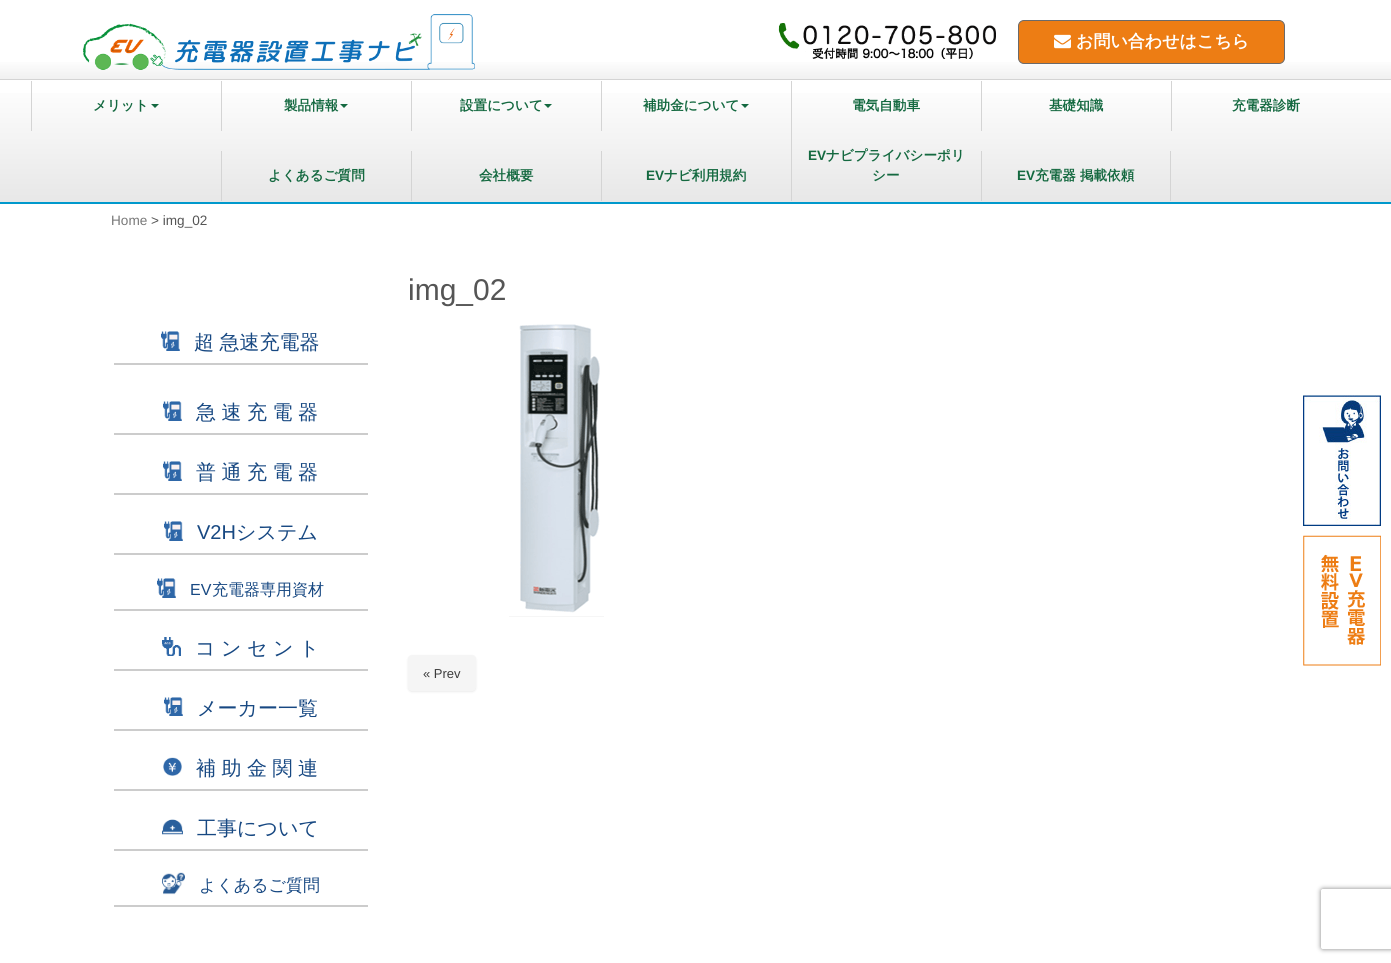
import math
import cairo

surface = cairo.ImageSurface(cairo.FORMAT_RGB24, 1391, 963)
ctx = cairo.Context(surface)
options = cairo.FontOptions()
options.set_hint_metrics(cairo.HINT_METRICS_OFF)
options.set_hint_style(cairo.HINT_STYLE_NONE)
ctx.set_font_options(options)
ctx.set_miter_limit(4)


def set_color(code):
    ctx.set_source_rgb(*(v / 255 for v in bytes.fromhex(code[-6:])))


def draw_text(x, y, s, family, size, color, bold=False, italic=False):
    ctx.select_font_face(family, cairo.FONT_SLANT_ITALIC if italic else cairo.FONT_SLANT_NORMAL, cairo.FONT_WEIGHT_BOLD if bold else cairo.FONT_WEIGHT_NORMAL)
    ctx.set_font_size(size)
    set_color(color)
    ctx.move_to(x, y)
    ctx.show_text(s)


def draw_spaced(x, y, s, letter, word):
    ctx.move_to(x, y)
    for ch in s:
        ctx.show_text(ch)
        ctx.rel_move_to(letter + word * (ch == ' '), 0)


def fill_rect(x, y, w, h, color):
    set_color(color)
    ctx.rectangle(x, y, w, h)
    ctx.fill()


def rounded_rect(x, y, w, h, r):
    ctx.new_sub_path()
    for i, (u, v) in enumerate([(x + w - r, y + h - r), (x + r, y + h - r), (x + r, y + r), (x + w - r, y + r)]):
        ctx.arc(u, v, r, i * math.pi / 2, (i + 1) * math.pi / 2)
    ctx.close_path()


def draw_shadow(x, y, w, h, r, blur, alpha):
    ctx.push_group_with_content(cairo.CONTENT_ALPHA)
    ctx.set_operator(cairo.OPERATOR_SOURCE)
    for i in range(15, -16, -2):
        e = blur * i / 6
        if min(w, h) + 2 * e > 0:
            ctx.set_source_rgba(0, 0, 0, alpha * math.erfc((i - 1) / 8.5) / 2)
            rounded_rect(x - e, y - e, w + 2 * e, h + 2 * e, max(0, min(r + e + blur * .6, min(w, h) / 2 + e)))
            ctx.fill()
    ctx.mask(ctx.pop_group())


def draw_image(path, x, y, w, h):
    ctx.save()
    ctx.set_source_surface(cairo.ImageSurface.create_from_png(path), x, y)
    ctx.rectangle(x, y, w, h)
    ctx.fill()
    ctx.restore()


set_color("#ffffff")
ctx.paint()
gradient = cairo.LinearGradient(696, 0, 696, 84)
gradient.add_color_stop_rgba(0.7, 1, 1, 1, 1)
gradient.add_color_stop_rgba(1, 0.929, 0.929, 0.929, 1)
ctx.set_source(gradient)
ctx.rectangle(0, 62, 1391, 17)
ctx.fill()
draw_image("assets/img1.png", 83, 14, 392, 56)
draw_image("assets/img2.png", 778, 23, 218, 36)
set_color("#ed7d14")
rounded_rect(1018.5, 20.5, 266, 43, 5.5)
ctx.fill_preserve()
set_color("#6b6a6a")
ctx.set_line_width(1)
ctx.stroke()
draw_image("assets/img3.png", 1054, 34, 17, 15)
draw_text(1076, 47, "お問い合わせはこちら", "WenQuanYi Zen Hei", 17, "#ffffff", bold=True)
gradient = cairo.LinearGradient(696, 80, 696, 202)
gradient.add_color_stop_rgba(0, 1, 1, 1, 1)
gradient.add_color_stop_rgba(1, 0.906, 0.906, 0.906, 1)
ctx.set_source(gradient)
ctx.rectangle(0, 93, 1391, 109)
ctx.fill()
fill_rect(0, 79, 1391, 1, "#d4d4d4")
fill_rect(0, 202, 1391, 2, "#0099cc")
fill_rect(31, 81, 1, 50, "#d4d4d4")
draw_text(93, 110, "メリット", "WenQuanYi Zen Hei", 13.6, "#146940", bold=True)
ctx.new_path()
ctx.move_to(151, 104)
ctx.line_to(159, 104)
ctx.line_to(155, 108)
ctx.close_path()
ctx.fill()
fill_rect(221, 81, 1, 50, "#d4d4d4")
draw_text(284, 110, "製品情報", "WenQuanYi Zen Hei", 13.6, "#146940", bold=True)
ctx.new_path()
ctx.move_to(340, 104)
ctx.line_to(348, 104)
ctx.line_to(344, 108)
ctx.close_path()
ctx.fill()
fill_rect(411, 81, 1, 50, "#d4d4d4")
draw_text(460, 110, "設置について", "WenQuanYi Zen Hei", 13.6, "#146940", bold=True)
ctx.new_path()
ctx.move_to(544, 104)
ctx.line_to(552, 104)
ctx.line_to(548, 108)
ctx.close_path()
ctx.fill()
fill_rect(601, 81, 1, 50, "#d4d4d4")
draw_text(643, 110, "補助金について", "WenQuanYi Zen Hei", 13.6, "#146940", bold=True)
ctx.new_path()
ctx.move_to(741, 104)
ctx.line_to(749, 104)
ctx.line_to(745, 108)
ctx.close_path()
ctx.fill()
fill_rect(791, 81, 1, 120, "#d4d4d4")
draw_text(852, 110, "電気自動車", "WenQuanYi Zen Hei", 13.6, "#146940", bold=True)
fill_rect(981, 81, 1, 50, "#d4d4d4")
draw_text(1049, 110, "基礎知識", "WenQuanYi Zen Hei", 13.6, "#146940", bold=True)
fill_rect(1171, 81, 1, 50, "#d4d4d4")
draw_text(1232, 110, "充電器診断", "WenQuanYi Zen Hei", 13.6, "#146940", bold=True)
fill_rect(221, 151, 1, 50, "#d4d4d4")
draw_text(268, 180, "よくあるご質問", "WenQuanYi Zen Hei", 13.6, "#146940", bold=True)
fill_rect(411, 151, 1, 50, "#d4d4d4")
draw_text(479, 180, "会社概要", "WenQuanYi Zen Hei", 13.6, "#146940", bold=True)
fill_rect(601, 151, 1, 50, "#d4d4d4")
draw_text(646, 180, "EV", "Liberation Sans", 13.6, "#146940", bold=True)
draw_text(664, 180, "ナビ利用規約", "WenQuanYi Zen Hei", 13.6, "#146940", bold=True)
draw_text(808, 160, "EV", "Liberation Sans", 13.6, "#146940", bold=True)
draw_text(826, 160, "ナビプライバシーポリ", "WenQuanYi Zen Hei", 13.6, "#146940", bold=True)
draw_text(872, 180, "シー", "WenQuanYi Zen Hei", 13.6, "#146940", bold=True)
fill_rect(1170, 151, 1, 50, "#d4d4d4")
fill_rect(981, 151, 1, 50, "#d4d4d4")
draw_text(1017, 180, "EV", "Liberation Sans", 13.6, "#146940", bold=True)
draw_text(1035, 180, "充電器 掲載依頼", "WenQuanYi Zen Hei", 13.6, "#146940", bold=True)
draw_image("assets/img4.png", 1303, 395, 78, 131)
draw_image("assets/img5.png", 1303, 535, 78, 131)
draw_text(111, 225, "Home", "Liberation Sans", 13.6, "#777777")
draw_text(151, 225, "> img_02", "Liberation Sans", 13.6, "#555555")
fill_rect(114, 363, 254, 2, "#cccccc")
draw_image("assets/img6.png", 161, 331, 19, 20)
ctx.select_font_face("WenQuanYi Zen Hei Medium")
ctx.set_font_size(20)
set_color("#174882")
draw_spaced(194, 349, "超 急速充電器", 0, -0.5)
fill_rect(114, 433, 254, 2, "#cccccc")
draw_image("assets/img6.png", 163, 401, 19, 20)
set_color("#174882")
draw_spaced(196, 419, "急 速 充 電 器", 0, -0.5)
fill_rect(114, 493, 254, 2, "#cccccc")
draw_image("assets/img6.png", 163, 461, 19, 20)
set_color("#174882")
draw_spaced(196, 479, "普 通 充 電 器", 0, -0.5)
fill_rect(114, 553, 254, 2, "#cccccc")
draw_image("assets/img6.png", 164, 521, 19, 20)
draw_text(197, 539, "V2H", "Liberation Sans", 20, "#174882")
draw_text(236, 539, "システム", "WenQuanYi Zen Hei Medium", 20, "#174882")
fill_rect(114, 609, 254, 2, "#cccccc")
draw_image("assets/img6.png", 157, 578, 19, 20)
draw_text(190, 595, "EV", "Liberation Sans", 16, "#174882")
draw_text(212, 595, "充電器専用資材", "WenQuanYi Zen Hei Medium", 16, "#174882")
fill_rect(114, 669, 254, 2, "#cccccc")
draw_image("assets/img7.png", 162, 637, 19, 19)
draw_text(195, 655, "コ", "WenQuanYi Zen Hei Medium", 20, "#174882")
draw_text(221, 655, "ン", "WenQuanYi Zen Hei Medium", 20, "#174882")
draw_text(247, 655, "セ", "WenQuanYi Zen Hei Medium", 20, "#174882")
draw_text(273, 655, "ン", "WenQuanYi Zen Hei Medium", 20, "#174882")
draw_text(299, 655, "ト", "WenQuanYi Zen Hei Medium", 20, "#174882")
fill_rect(114, 729, 254, 2, "#cccccc")
draw_image("assets/img8.png", 164, 697, 19, 19)
draw_text(197, 715, "メーカー一覧", "WenQuanYi Zen Hei Medium", 20, "#174882")
fill_rect(114, 789, 254, 2, "#cccccc")
draw_image("assets/img9.png", 163, 757, 19, 19)
set_color("#174882")
draw_spaced(196, 775, "補 助 金 関 連", 0, -0.5)
fill_rect(114, 849, 254, 2, "#cccccc")
draw_image("assets/img10.png", 162, 819, 21, 16)
draw_text(197, 835, "工事について", "WenQuanYi Zen Hei Medium", 20, "#174882")
fill_rect(114, 905, 254, 2, "#cccccc")
draw_image("assets/img11.png", 162, 872, 23, 23)
draw_text(199, 891, "よくあるご質問", "WenQuanYi Zen Hei Medium", 17, "#174882")
draw_text(408, 300, "img_02", "Liberation Sans", 30, "#555555")
draw_image("assets/img12.png", 509, 324, 95, 293)
set_color("#323232")
draw_shadow(408, 656, 68, 36, 4, 1, 0.1)
set_color("#f5f5f5")
rounded_rect(408, 655, 68, 36, 4)
ctx.fill()
draw_text(423, 678, "« Prev", "Liberation Sans", 13, "#3c3c3c")
ctx.save()
ctx.set_fill_rule(cairo.FILL_RULE_EVEN_ODD)
ctx.new_path()
ctx.move_to(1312, 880)
ctx.line_to(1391, 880)
ctx.line_to(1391, 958)
ctx.line_to(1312, 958)
ctx.close_path()
ctx.move_to(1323, 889)
ctx.line_to(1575, 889)
ctx.curve_to(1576, 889, 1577, 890, 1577, 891)
ctx.line_to(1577, 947)
ctx.curve_to(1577, 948, 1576, 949, 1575, 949)
ctx.line_to(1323, 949)
ctx.curve_to(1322, 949, 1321, 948, 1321, 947)
ctx.line_to(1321, 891)
ctx.curve_to(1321, 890, 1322, 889, 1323, 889)
ctx.close_path()
ctx.clip()
set_color("#808080")
draw_shadow(1321, 889, 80, 60, 2, 2.5, 1)
ctx.restore()
surface.write_to_png("output.png")
